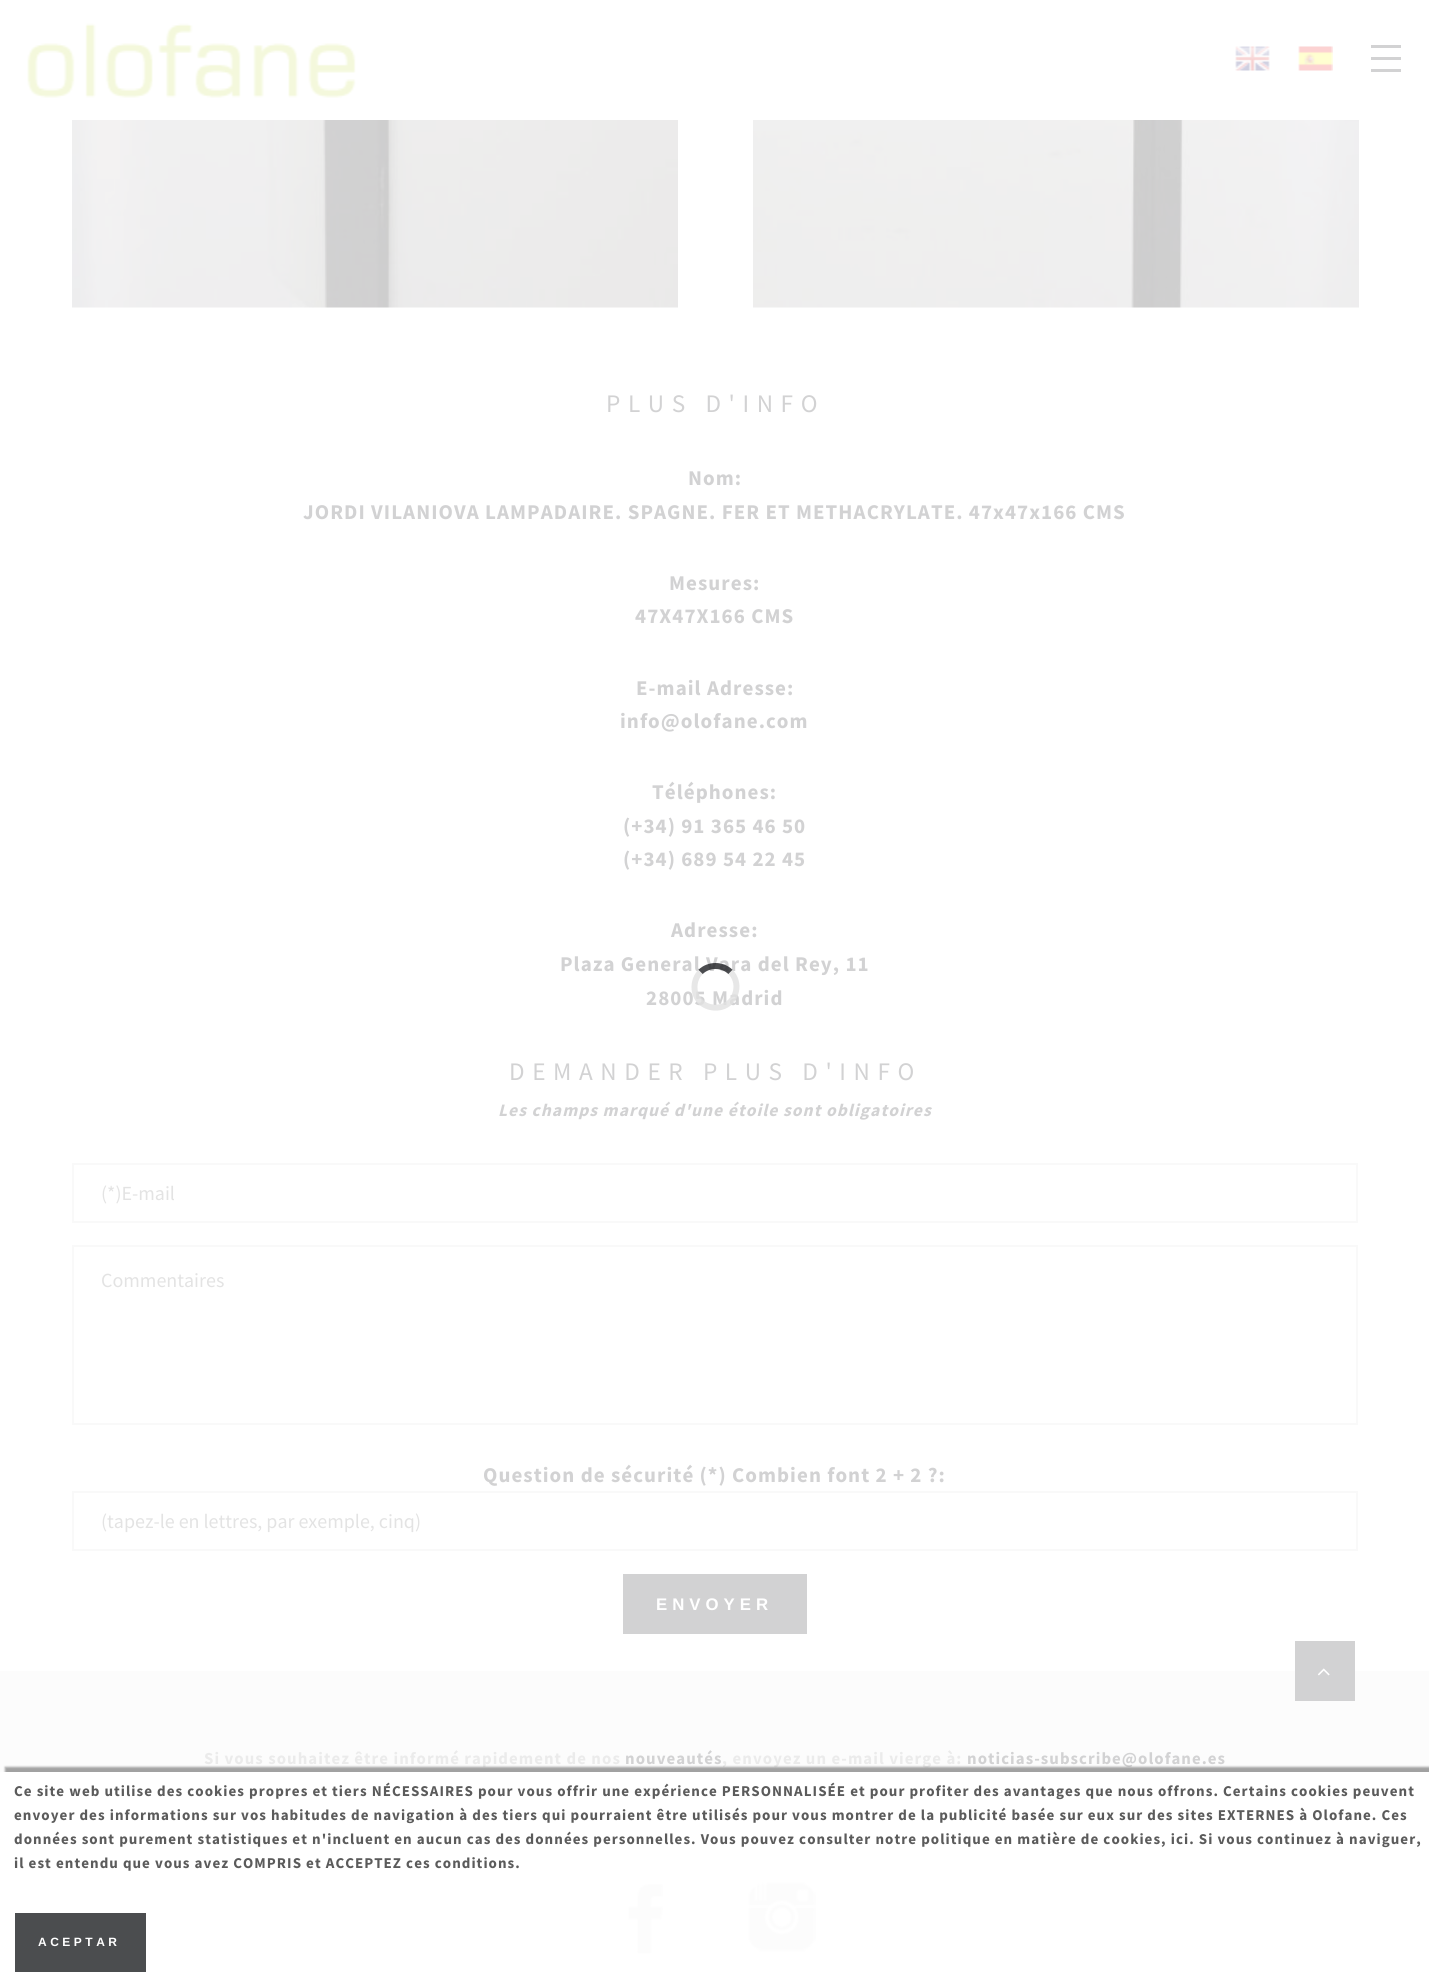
import math
import cairo

surface = cairo.ImageSurface(cairo.FORMAT_RGB24, 1429, 1972)
ctx = cairo.Context(surface)
options = cairo.FontOptions()
options.set_hint_metrics(cairo.HINT_METRICS_OFF)
options.set_hint_style(cairo.HINT_STYLE_NONE)
ctx.set_font_options(options)
ctx.set_miter_limit(4)


def set_color(code):
    ctx.set_source_rgb(*(v / 255 for v in bytes.fromhex(code[-6:])))


def draw_text(x, y, s, family, size, color, bold=False, italic=False):
    ctx.select_font_face(family, cairo.FONT_SLANT_ITALIC if italic else cairo.FONT_SLANT_NORMAL, cairo.FONT_WEIGHT_BOLD if bold else cairo.FONT_WEIGHT_NORMAL)
    ctx.set_font_size(size)
    set_color(color)
    ctx.move_to(x, y)
    ctx.show_text(s)


def draw_spaced(x, y, s, letter, word):
    ctx.move_to(x, y)
    for ch in s:
        ctx.show_text(ch)
        ctx.rel_move_to(letter + word * (ch == ' '), 0)


def fill_rect(x, y, w, h, color):
    set_color(color)
    ctx.rectangle(x, y, w, h)
    ctx.fill()


def rounded_rect(x, y, w, h, r):
    ctx.new_sub_path()
    for i, (u, v) in enumerate([(x + w - r, y + h - r), (x + r, y + h - r), (x + r, y + r), (x + w - r, y + r)]):
        ctx.arc(u, v, r, i * math.pi / 2, (i + 1) * math.pi / 2)
    ctx.close_path()


def draw_shadow(x, y, w, h, r, blur, alpha):
    ctx.push_group_with_content(cairo.CONTENT_ALPHA)
    ctx.set_operator(cairo.OPERATOR_SOURCE)
    for i in range(15, -16, -2):
        e = blur * i / 6
        if min(w, h) + 2 * e > 0:
            ctx.set_source_rgba(0, 0, 0, alpha * math.erfc((i - 1) / 8.5) / 2)
            rounded_rect(x - e, y - e, w + 2 * e, h + 2 * e, max(0, min(r + e + blur * .6, min(w, h) / 2 + e)))
            ctx.fill()
    ctx.mask(ctx.pop_group())


def draw_image(path, x, y, w, h):
    ctx.save()
    ctx.set_source_surface(cairo.ImageSurface.create_from_png(path), x, y)
    ctx.rectangle(x, y, w, h)
    ctx.fill()
    ctx.restore()


set_color("#ffffff")
ctx.paint()
draw_image("assets/img1.png", 27, 23, 329, 75)
draw_image("assets/img2.png", 1235, 46, 35, 25)
draw_image("assets/img3.png", 1298, 46, 35, 25)
fill_rect(1371, 45, 30, 3, "#d2d2d3")
fill_rect(1371, 57, 30, 3, "#d2d2d3")
fill_rect(1371, 69, 30, 3, "#d2d2d3")
draw_image("assets/img4.png", 72, 120, 606, 188)
draw_image("assets/img5.png", 753, 120, 606, 188)
ctx.select_font_face("Source Sans Pro")
ctx.set_font_size(25.25)
draw_spaced(606, 412, "PLUS D'INFO", 7.6, 0)
ctx.select_font_face("Source Sans Pro", cairo.FONT_SLANT_NORMAL, cairo.FONT_WEIGHT_BOLD)
ctx.set_font_size(21)
draw_spaced(688, 485, "Nom:", 1.05, 0)
draw_spaced(303, 519, "JORDI VILANIOVA LAMPADAIRE. SPAGNE. FER ET METHACRYLATE. 47x47x166 CMS", 1.05, 0)
draw_spaced(669, 590, "Mesures:", 1.05, 0)
draw_spaced(635, 623, "47X47X166 CMS", 1.05, 0)
draw_spaced(636, 695, "E-mail Adresse:", 1.05, 0)
draw_spaced(620, 728, "info@olofane.com", 1.05, 0)
draw_spaced(652, 799, "Téléphones:", 1.05, 0)
draw_spaced(623, 833, "(+34) 91 365 46 50", 1.05, 0)
draw_spaced(623, 866, "(+34) 689 54 22 45", 1.05, 0)
draw_spaced(671, 937, "Adresse:", 1.05, 0)
draw_spaced(560, 971, "Plaza General Vara del Rey, 11", 1.05, 0)
draw_spaced(646, 1005, "28005 Madrid", 1.05, 0)
ctx.select_font_face("Source Sans Pro")
ctx.set_font_size(25.25)
draw_spaced(509, 1080, "DEMANDER PLUS D'INFO", 7.6, 0)
ctx.select_font_face("Source Sans Pro", cairo.FONT_SLANT_ITALIC, cairo.FONT_WEIGHT_BOLD)
ctx.set_font_size(17.5)
draw_spaced(498, 1116, "Les champs marqué d'une étoile sont obligatoires", 1.05, 0)
ctx.rectangle(73, 1164, 1284, 58)
set_color("#f9f9f9")
ctx.stroke()
draw_text(101, 1200, "(*)E-mail", "Source Sans Pro", 20, "#e3e3e3")
ctx.rectangle(73, 1246, 1284, 178)
set_color("#f9f9f9")
ctx.stroke()
draw_text(101, 1287, "Commentaires", "Source Sans Pro", 20, "#e3e3e3")
ctx.select_font_face("Source Sans Pro", cairo.FONT_SLANT_NORMAL, cairo.FONT_WEIGHT_BOLD)
ctx.set_font_size(21)
set_color("#d2d2d3")
draw_spaced(483, 1482, "Question de sécurité (*) Combien font 2 + 2 ?:", 1.05, 0)
ctx.rectangle(73, 1492, 1284, 58)
set_color("#f9f9f9")
ctx.stroke()
draw_text(101, 1528, "(tapez-le en lettres, par exemple, cinq)", "Source Sans Pro", 20, "#e3e3e3")
fill_rect(623, 1574, 184, 60, "#d2d2d3")
ctx.select_font_face("Liberation Sans", cairo.FONT_SLANT_NORMAL, cairo.FONT_WEIGHT_BOLD)
ctx.set_font_size(16.8)
set_color("#ffffff")
draw_spaced(656, 1610, "ENVOYER", 5, 0)
fill_rect(0, 1671, 1429, 101, "#fcfcfc")
fill_rect(1295, 1641, 60, 60, "#d2d2d3")
draw_image("assets/img6.png", 1317, 1668, 13, 8)
ctx.select_font_face("Source Sans Pro", cairo.FONT_SLANT_NORMAL, cairo.FONT_WEIGHT_BOLD)
set_color("#ebebeb")
draw_spaced(204, 1764, "Si vous souhaitez être informé rapidement de nos", 1.05, 0)
set_color("#d2d2d3")
draw_spaced(625, 1764, "nouveautés", 1.05, 0)
set_color("#ebebeb")
draw_spaced(722, 1764, ", envoyez un e-mail vierge à:", 1.05, 0)
set_color("#d2d2d3")
draw_spaced(967, 1764, "noticias-subscribe@olofane.es", 1.05, 0)
draw_image("assets/img7.png", 628, 1883, 36, 71)
draw_image("assets/img8.png", 748, 1882, 69, 70)
ctx.new_path()
ctx.move_to(700.5, 972)
ctx.curve_to(708.5, 964, 722.5, 964, 730.5, 972)
ctx.set_source_rgba(0.118, 0.125, 0.137, 0.8)
ctx.set_line_width(6)
ctx.stroke()
ctx.new_path()
ctx.move_to(730.5, 972)
ctx.curve_to(735.5, 977, 737.5, 984.5, 736, 991)
ctx.curve_to(731, 1015.5, 694.5, 1012, 694.5, 987)
ctx.curve_to(694.5, 981.5, 696.5, 976, 700.5, 972)
ctx.set_source_rgba(0.882, 0.882, 0.882, 0.8)
ctx.stroke()
ctx.save()
ctx.rectangle(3, 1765, 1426, 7)
ctx.clip()
set_color("#323232")
draw_shadow(5, 1767, 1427, 201, 0, 1, 0.45)
ctx.restore()
ctx.set_font_size(15)
set_color("#5b5b5b")
draw_spaced(14, 1796, "Ce site web utilise des cookies propres et tiers NÉCESSAIRES pour vous offrir une expérience PERSONNALISÉE et pour profiter des avantages que nous offrons. Certains cookies peuvent", 1.05, 0)
draw_spaced(14, 1820, "envoyer des informations sur vos habitudes de navigation à des tiers qui pourraient être utilisés pour vous montrer de la publicité basée sur eux sur des sites EXTERNES à Olofane. Ces", 1.05, 0)
draw_spaced(14, 1844, "données sont purement statistiques et n'incluent en aucun cas des données personnelles. Vous pouvez consulter notre politique en matière de cookies, ici. Si vous continuez à naviguer,", 1.05, 0)
draw_spaced(14, 1868, "il est entendu que vous avez COMPRIS et ACCEPTEZ ces conditions.", 1.05, 0)
fill_rect(15, 1913, 131, 59, "#4b4d4f")
ctx.select_font_face("Liberation Sans", cairo.FONT_SLANT_NORMAL, cairo.FONT_WEIGHT_BOLD)
ctx.set_font_size(12)
set_color("#ffffff")
draw_spaced(38, 1946, "ACEPTAR", 3.5, 0)
surface.write_to_png("output.png")
